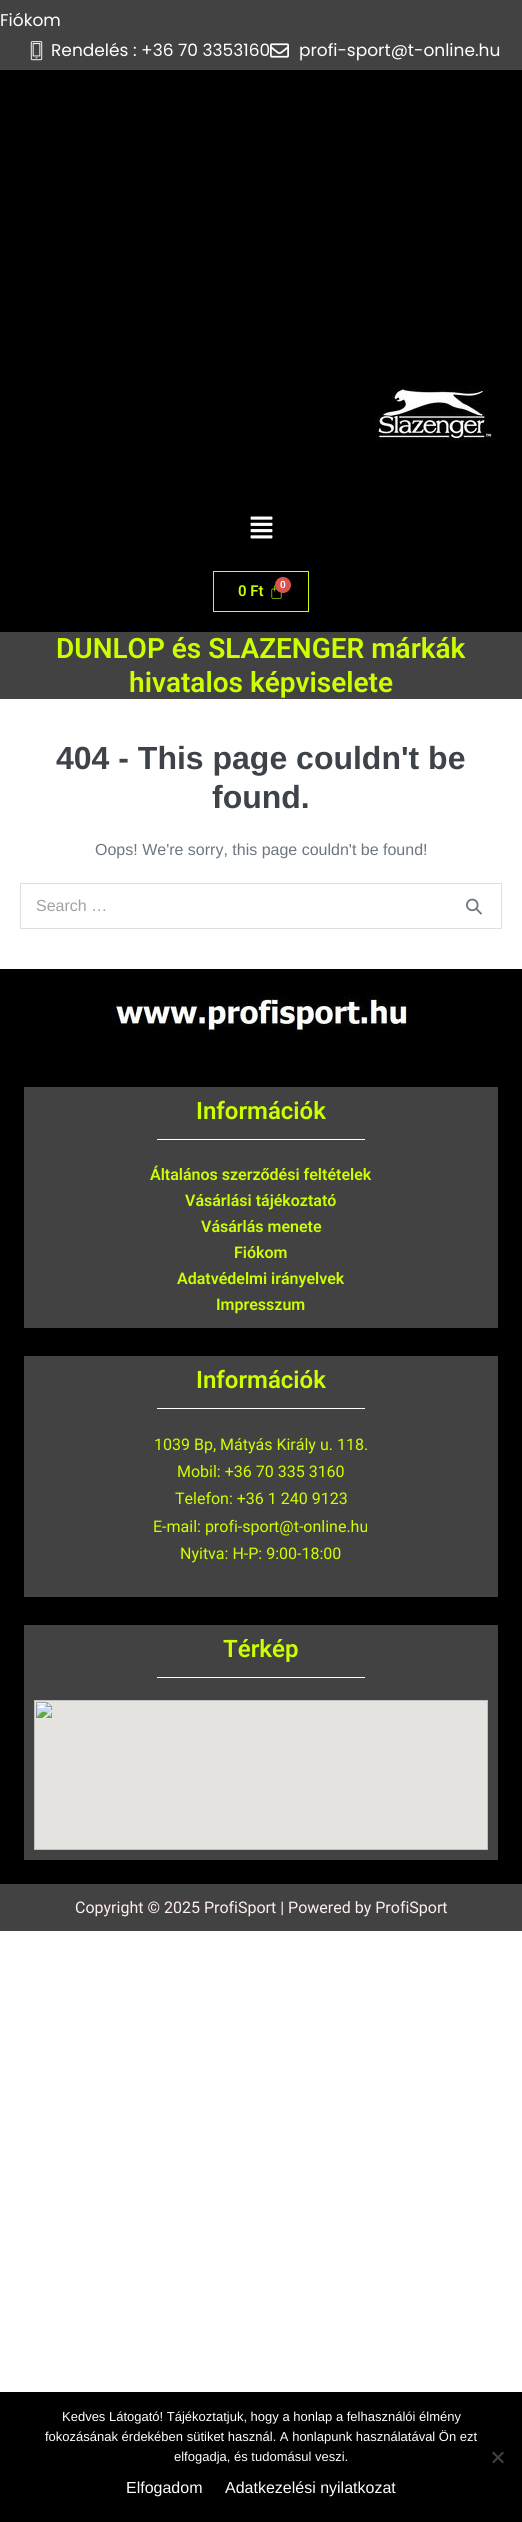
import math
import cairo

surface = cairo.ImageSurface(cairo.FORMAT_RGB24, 522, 2522)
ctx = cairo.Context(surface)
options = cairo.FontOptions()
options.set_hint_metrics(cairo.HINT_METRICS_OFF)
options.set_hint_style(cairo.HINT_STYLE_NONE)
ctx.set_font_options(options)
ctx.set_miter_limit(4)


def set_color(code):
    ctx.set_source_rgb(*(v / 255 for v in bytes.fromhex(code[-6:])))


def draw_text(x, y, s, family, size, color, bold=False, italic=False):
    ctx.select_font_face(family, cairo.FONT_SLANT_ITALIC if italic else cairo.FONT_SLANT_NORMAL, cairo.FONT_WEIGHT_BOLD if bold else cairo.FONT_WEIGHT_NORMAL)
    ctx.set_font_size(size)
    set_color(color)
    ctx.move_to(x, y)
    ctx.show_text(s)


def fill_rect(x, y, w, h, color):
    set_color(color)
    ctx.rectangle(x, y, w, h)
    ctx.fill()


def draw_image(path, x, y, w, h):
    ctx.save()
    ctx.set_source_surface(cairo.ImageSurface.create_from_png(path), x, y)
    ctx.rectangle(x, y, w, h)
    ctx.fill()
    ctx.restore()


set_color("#ffffff")
ctx.paint()
fill_rect(0, 0, 522, 70, "#424242")
draw_text(0, 26, "Fiókom", "Poppins", 17, "#ffffff")
draw_image("assets/img1.png", 30, 41, 13, 20)
draw_text(51, 56, "Rendelés : +36 70 3353160", "Poppins", 17, "#ffffff")
draw_image("assets/img2.png", 270, 43, 19, 15)
draw_text(299, 56, "profi-sport@t-online.hu", "Poppins", 17, "#ffffff")
fill_rect(0, 70, 522, 562, "#000000")
draw_image("assets/img3.png", 375, 386, 120, 56)
draw_image("assets/img4.png", 250, 516, 23, 23)
ctx.rectangle(213.5, 571.5, 95, 40)
set_color("#ccff00")
ctx.set_line_width(1)
ctx.stroke()
draw_text(238, 596, "0 Ft", "Roboto SemiBold", 15, "#ccff00")
draw_image("assets/img5.png", 271, 585, 11, 14)
set_color("#d9534f")
ctx.arc(283, 585, 8, 0, 2 * math.pi)
ctx.fill()
draw_text(280, 588, "0", "Roboto SemiBold", 10, "#ffffff")
fill_rect(0, 632, 522, 67, "#424242")
draw_text(56, 658, "DUNLOP és SLAZENGER márkák", "Roboto SemiBold", 28, "#ccff00")
draw_text(129, 692, "hivatalos képviselete", "Roboto SemiBold", 28, "#ccff00")
draw_text(56, 769, "404 - This page couldn't be", "Liberation Sans", 32, "#3e4349", bold=True)
draw_text(212, 808, "found.", "Liberation Sans", 32, "#3e4349", bold=True)
draw_text(95, 855, "Oops! We're sorry, this page couldn't be found!", "Liberation Sans", 16, "#6d7680")
ctx.rectangle(20.5, 883.5, 481, 45)
set_color("#dedee5")
ctx.stroke()
draw_text(36, 911, "Search …", "Liberation Sans", 16, "#9fa1a4")
draw_image("assets/img6.png", 466, 898, 16, 17)
fill_rect(0, 969, 522, 915, "#000000")
draw_image("assets/img7.png", 111, 995, 298, 40)
fill_rect(24, 1087, 474, 241, "#424242")
draw_text(196, 1119, "Információk", "Roboto SemiBold", 24, "#ccff00")
fill_rect(157, 1139, 208, 1, "#ffffff")
draw_text(150, 1180, "Általános szerződési feltételek", "Roboto SemiBold", 16, "#ccff00")
draw_text(185, 1206, "Vásárlási tájékoztató", "Roboto SemiBold", 16, "#ccff00")
draw_text(201, 1232, "Vásárlás menete", "Roboto SemiBold", 16, "#ccff00")
draw_text(234, 1258, "Fiókom", "Roboto SemiBold", 16, "#ccff00")
draw_text(177, 1284, "Adatvédelmi irányelvek", "Roboto SemiBold", 16, "#ccff00")
draw_text(216, 1310, "Impresszum", "Roboto SemiBold", 16, "#ccff00")
fill_rect(24, 1356, 474, 241, "#424242")
draw_text(196, 1388, "Információk", "Roboto SemiBold", 24, "#ccff00")
fill_rect(157, 1408, 208, 1, "#ffffff")
draw_text(154, 1450, "1039 Bp, Mátyás Király u. 118.", "Roboto", 16, "#ccff00")
draw_text(177, 1477, "Mobil: +36 70 335 3160", "Roboto", 16, "#ccff00")
draw_text(175, 1504, "Telefon: +36 1 240 9123", "Roboto", 16, "#ccff00")
draw_text(153, 1532, "E-mail: profi-sport@t-online.hu", "Roboto", 16, "#ccff00")
draw_text(180, 1559, "Nyitva: H-P: 9:00-18:00", "Roboto", 16, "#ccff00")
fill_rect(24, 1625, 474, 235, "#424242")
draw_text(223, 1657, "Térkép", "Roboto SemiBold", 24, "#ccff00")
fill_rect(157, 1677, 208, 1, "#ffffff")
draw_image("assets/img8.png", 34, 1700, 454, 150)
fill_rect(0, 1884, 522, 47, "#424242")
draw_text(75, 1913, "Copyright © 2025 ProfiSport | Powered by ProfiSport", "Roboto", 16, "#ffeeee")
fill_rect(0, 2392, 522, 130, "#000000")
draw_text(62, 2421, "Kedves Látogató! Tájékoztatjuk, hogy a honlap a felhasználói élmény", "Liberation Sans", 13, "#ffffff")
draw_text(45, 2441, "fokozásának érdekében sütiket használ. A honlapunk használatával Ön ezt", "Liberation Sans", 13, "#ffffff")
draw_text(174, 2461, "elfogadja, és tudomásul veszi.", "Liberation Sans", 13, "#ffffff")
set_color("#404040")
ctx.new_path()
ctx.move_to(502.5, 2451.5)
ctx.line_to(504, 2453)
ctx.line_to(493.5, 2463.5)
ctx.line_to(492, 2462)
ctx.close_path()
ctx.fill()
ctx.new_path()
ctx.move_to(492, 2453)
ctx.line_to(493.5, 2451.5)
ctx.line_to(504, 2462)
ctx.line_to(502.5, 2463.5)
ctx.close_path()
ctx.fill()
draw_text(126, 2493, "Elfogadom", "Liberation Sans", 16, "#ffffff")
draw_text(225, 2493, "Adatkezelési nyilatkozat", "Liberation Sans", 16, "#ffffff")
surface.write_to_png("output.png")
